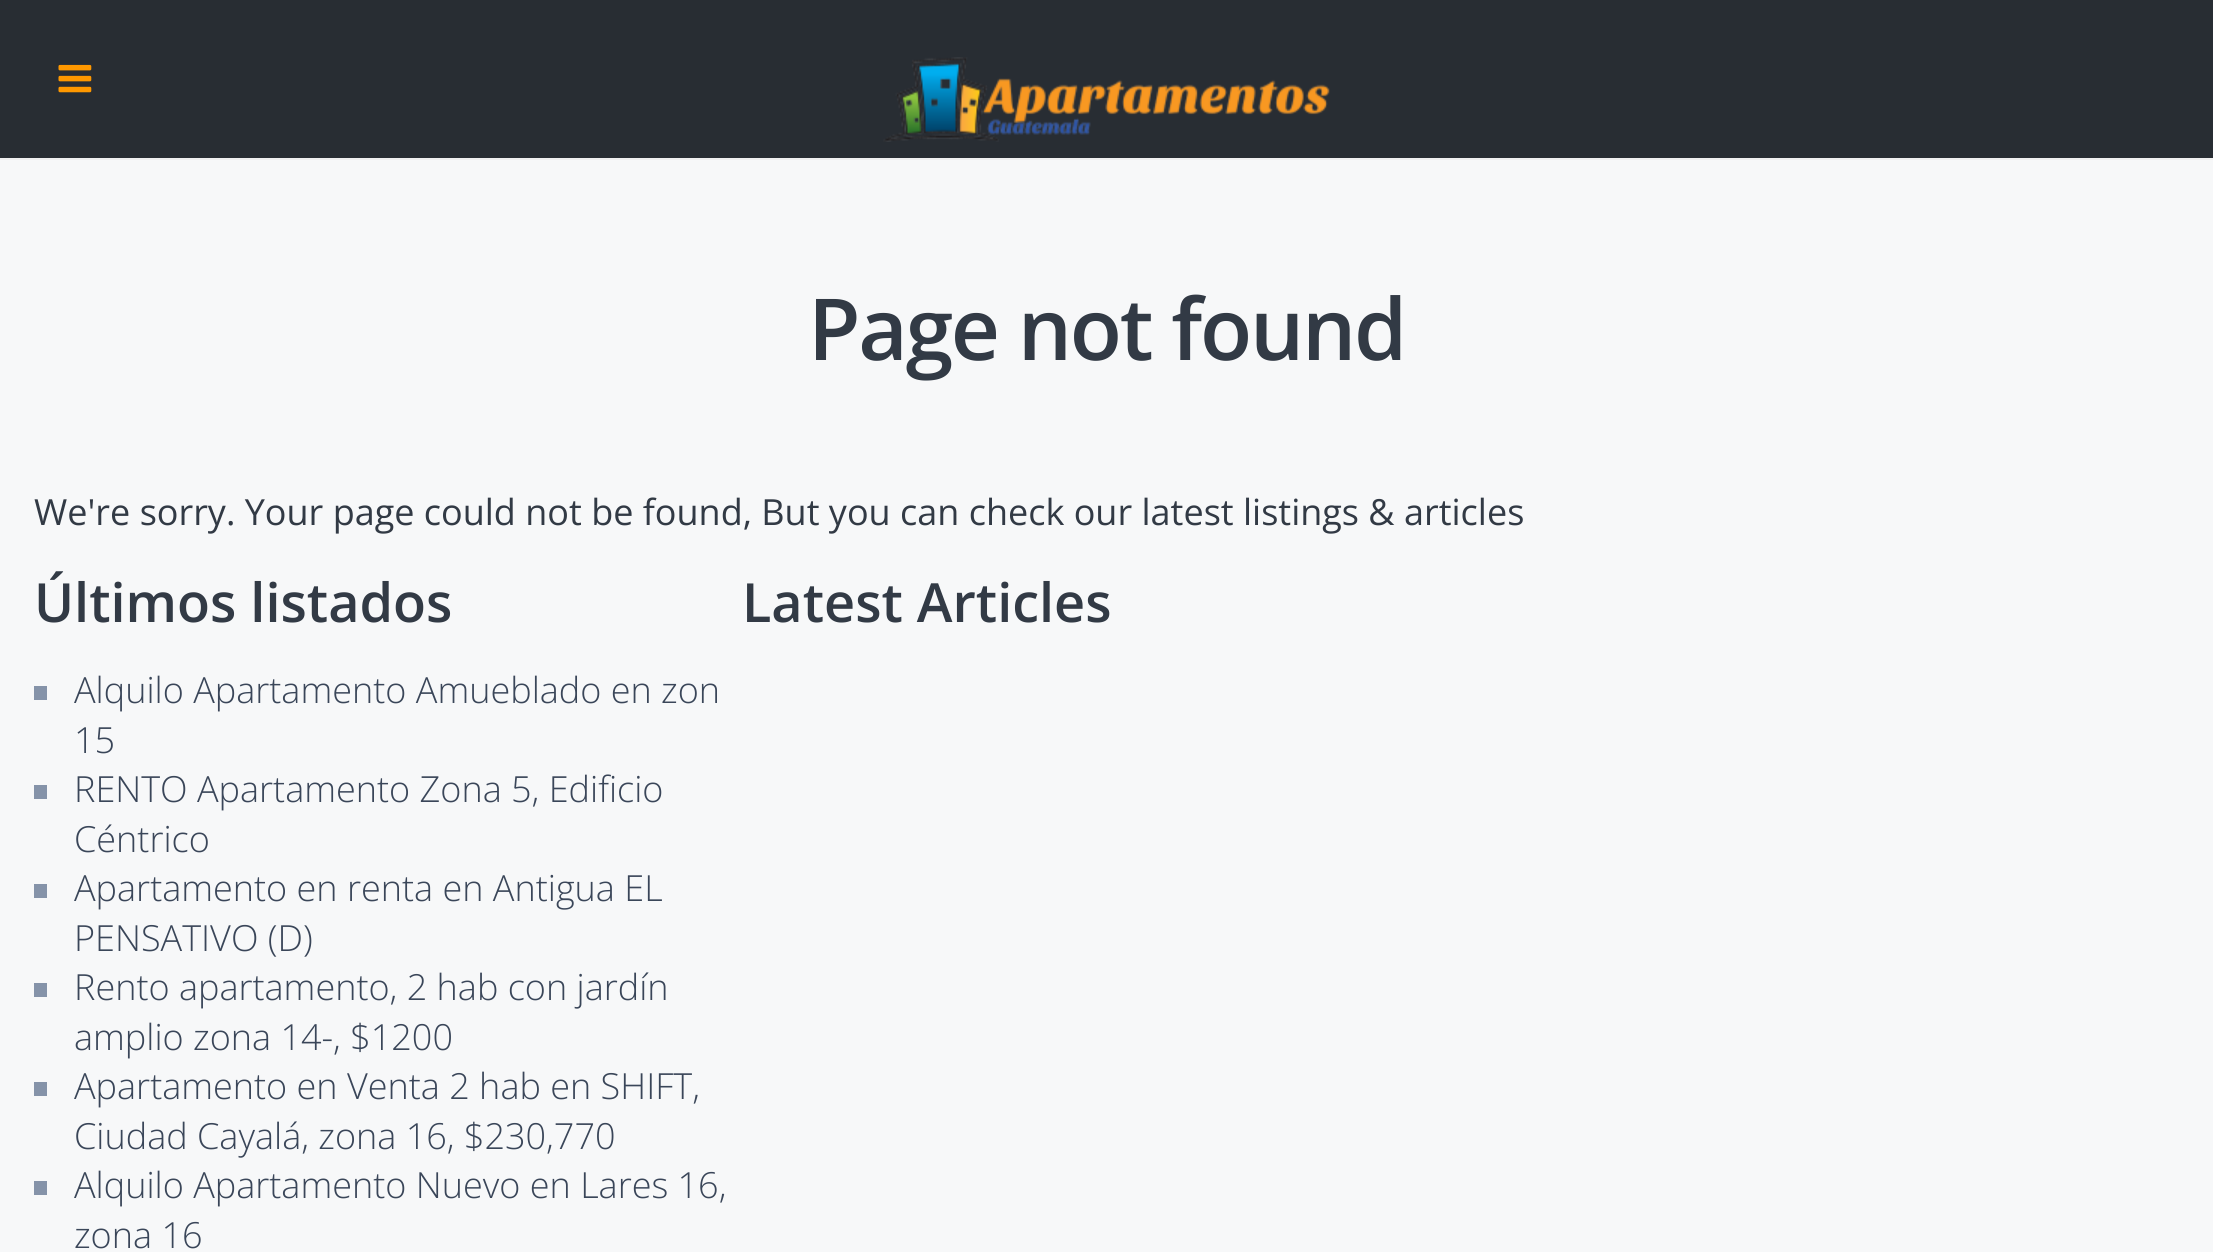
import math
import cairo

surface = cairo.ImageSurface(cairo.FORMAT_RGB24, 2213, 1252)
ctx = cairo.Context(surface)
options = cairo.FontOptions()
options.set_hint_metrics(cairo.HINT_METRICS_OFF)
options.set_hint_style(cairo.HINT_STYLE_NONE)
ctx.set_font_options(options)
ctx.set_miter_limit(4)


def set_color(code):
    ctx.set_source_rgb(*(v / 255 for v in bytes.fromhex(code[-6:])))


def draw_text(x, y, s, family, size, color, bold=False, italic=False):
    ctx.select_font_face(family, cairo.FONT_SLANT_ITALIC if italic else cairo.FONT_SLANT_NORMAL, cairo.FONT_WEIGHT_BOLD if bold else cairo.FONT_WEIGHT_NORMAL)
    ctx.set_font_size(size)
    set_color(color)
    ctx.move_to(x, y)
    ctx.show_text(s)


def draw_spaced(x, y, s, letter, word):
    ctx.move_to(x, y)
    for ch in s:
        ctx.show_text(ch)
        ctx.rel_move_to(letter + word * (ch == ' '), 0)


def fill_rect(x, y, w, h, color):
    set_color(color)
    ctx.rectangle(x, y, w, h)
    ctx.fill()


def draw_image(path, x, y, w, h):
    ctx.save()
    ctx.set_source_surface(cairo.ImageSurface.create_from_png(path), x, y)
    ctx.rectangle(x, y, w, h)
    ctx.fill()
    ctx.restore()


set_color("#f7f8f9")
ctx.paint()
fill_rect(0, 158, 2213, 2, "#f0f0f0")
fill_rect(0, 0, 2213, 158, "#282d33")
draw_image("assets/img1.png", 58, 64, 34, 29)
draw_image("assets/img2.png", 883, 57, 447, 85)
ctx.select_font_face("Open Sans SemiBold")
ctx.set_font_size(85.5)
set_color("#323a45")
draw_spaced(808, 360, "Page not found", -2.25, 0)
draw_text(34, 525, "We're sorry. Your page could not be found, But you can check our latest listings & articles", "Open Sans", 36, "#323a45")
draw_text(34, 622, "Últimos listados", "Open Sans SemiBold", 54, "#323a45")
fill_rect(34, 686, 13, 14, "#8593a9")
draw_text(74, 703, "Alquilo Apartamento Amueblado en zon", "Open Sans Light", 36, "#3a4659")
draw_text(74, 753, "15", "Open Sans Light", 36, "#3a4659")
fill_rect(34, 785, 13, 14, "#8593a9")
draw_text(74, 802, "RENTO Apartamento Zona 5, Edificio", "Open Sans Light", 36, "#3a4659")
draw_text(74, 852, "Céntrico", "Open Sans Light", 36, "#3a4659")
fill_rect(34, 884, 13, 14, "#8593a9")
draw_text(74, 901, "Apartamento en renta en Antigua EL", "Open Sans Light", 36, "#3a4659")
draw_text(74, 951, "PENSATIVO (D)", "Open Sans Light", 36, "#3a4659")
fill_rect(34, 983, 13, 14, "#8593a9")
draw_text(74, 1000, "Rento apartamento, 2 hab con jardín", "Open Sans Light", 36, "#3a4659")
draw_text(74, 1050, "amplio zona 14-, $1200", "Open Sans Light", 36, "#3a4659")
fill_rect(34, 1082, 13, 14, "#8593a9")
draw_text(74, 1099, "Apartamento en Venta 2 hab en SHIFT,", "Open Sans Light", 36, "#3a4659")
draw_text(74, 1149, "Ciudad Cayalá, zona 16, $230,770", "Open Sans Light", 36, "#3a4659")
fill_rect(34, 1181, 13, 14, "#8593a9")
draw_text(74, 1198, "Alquilo Apartamento Nuevo en Lares 16,", "Open Sans Light", 36, "#3a4659")
draw_text(74, 1248, "zona 16", "Open Sans Light", 36, "#3a4659")
draw_text(742, 622, "Latest Articles", "Open Sans SemiBold", 54, "#323a45")
surface.write_to_png("output.png")
